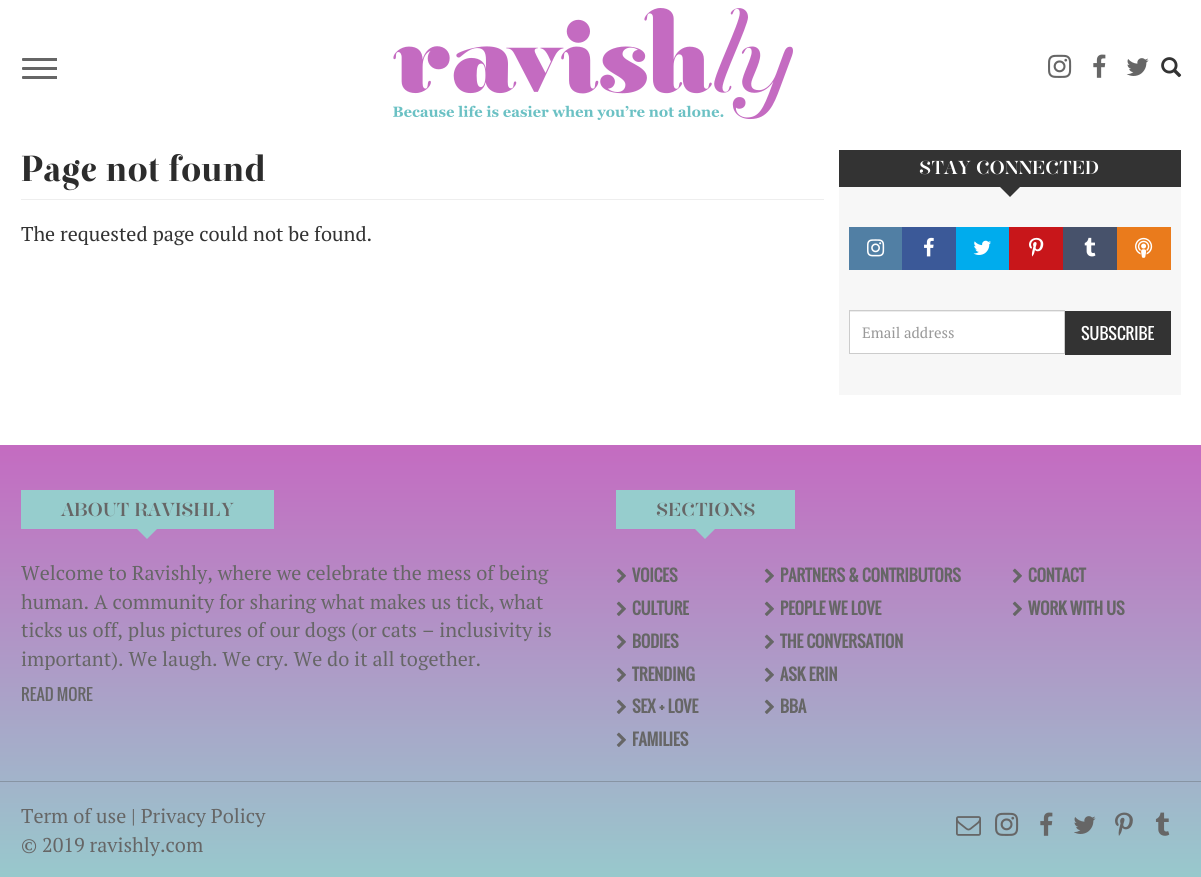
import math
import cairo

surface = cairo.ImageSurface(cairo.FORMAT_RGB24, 1201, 877)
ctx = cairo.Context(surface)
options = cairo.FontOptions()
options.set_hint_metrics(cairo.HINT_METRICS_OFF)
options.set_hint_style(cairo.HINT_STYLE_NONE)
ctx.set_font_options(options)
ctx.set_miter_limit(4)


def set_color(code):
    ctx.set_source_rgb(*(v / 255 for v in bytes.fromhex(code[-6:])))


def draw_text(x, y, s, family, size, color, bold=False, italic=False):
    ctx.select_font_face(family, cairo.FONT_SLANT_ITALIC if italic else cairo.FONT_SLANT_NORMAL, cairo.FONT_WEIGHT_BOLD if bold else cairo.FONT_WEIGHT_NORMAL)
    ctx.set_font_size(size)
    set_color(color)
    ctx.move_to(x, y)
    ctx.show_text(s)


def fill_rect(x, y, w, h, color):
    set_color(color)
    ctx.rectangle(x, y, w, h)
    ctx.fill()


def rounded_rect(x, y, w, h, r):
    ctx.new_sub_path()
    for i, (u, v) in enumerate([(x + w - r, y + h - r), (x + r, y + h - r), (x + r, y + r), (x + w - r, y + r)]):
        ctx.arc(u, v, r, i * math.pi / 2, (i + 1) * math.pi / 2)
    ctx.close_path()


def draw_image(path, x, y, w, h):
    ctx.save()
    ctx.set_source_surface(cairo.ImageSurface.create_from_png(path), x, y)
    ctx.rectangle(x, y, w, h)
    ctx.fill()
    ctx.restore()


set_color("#ffffff")
ctx.paint()
set_color("#666666")
rounded_rect(22, 58, 35, 3, 1)
ctx.fill()
fill_rect(56, 58, 1, 3, "#666666")
rounded_rect(22, 67, 35, 3, 1)
ctx.fill()
fill_rect(56, 67, 1, 3, "#666666")
rounded_rect(22, 76, 35, 3, 1)
ctx.fill()
fill_rect(56, 76, 1, 3, "#666666")
draw_image("assets/img1.png", 393, 8, 400, 112)
draw_image("assets/img2.png", 1048, 54, 24, 24)
draw_image("assets/img3.png", 1093, 54, 13, 24)
draw_image("assets/img4.png", 1126, 58, 23, 18)
draw_image("assets/img5.png", 1161, 57, 21, 21)
fill_rect(21, 199, 803, 1, "#eeeeee")
draw_text(21, 181, "Page not found", "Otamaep", 36, "#2c2c2c")
draw_text(21, 241, "The requested page could not be found.", "PT Serif", 20, "#333333")
fill_rect(839, 187, 342, 208, "#f7f7f7")
fill_rect(839, 150, 342, 37, "#333333")
draw_text(919, 174, "STAY CONNECTED", "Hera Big", 16, "#ffffff")
set_color("#333333")
ctx.new_path()
ctx.move_to(1000, 187)
ctx.line_to(1020, 187)
ctx.line_to(1010, 197)
ctx.close_path()
ctx.fill()
fill_rect(849, 227, 53, 43, "#517fa4")
draw_image("assets/img6.png", 867, 239, 18, 18)
fill_rect(902, 227, 54, 43, "#3b5998")
draw_image("assets/img7.png", 924, 237, 10, 20)
fill_rect(956, 227, 53, 43, "#00aced")
draw_image("assets/img8.png", 973, 240, 18, 15)
fill_rect(1009, 227, 54, 43, "#c8161a")
draw_image("assets/img9.png", 1029, 237, 15, 20)
fill_rect(1063, 227, 54, 43, "#47526b")
draw_image("assets/img10.png", 1084, 237, 12, 20)
fill_rect(1117, 227, 54, 43, "#ea7b1c")
draw_image("assets/img11.png", 1135, 237, 18, 21)
fill_rect(850, 312, 214, 41, "#ffffff")
fill_rect(850, 311, 214, 1, "#ececec")
ctx.rectangle(849.5, 310.5, 215, 43)
set_color("#cccccc")
ctx.set_line_width(1)
ctx.stroke()
draw_text(862, 338, "Email address", "PT Serif", 15, "#999999")
fill_rect(1065, 311, 106, 44, "#333333")
draw_text(1081, 340, "SUBSCRIBE", "Oswald", 16, "#ffffff")
gradient = cairo.LinearGradient(601, 445, 601, 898)
gradient.add_color_stop_rgba(0, 0.769, 0.42, 0.757, 1)
gradient.add_color_stop_rgba(1, 0.588, 0.804, 0.804, 1)
ctx.set_source(gradient)
ctx.rectangle(0, 445, 1201, 432)
ctx.fill()
fill_rect(21, 490, 253, 39, "#96cdcd")
draw_text(61, 516, "ABOUT RAVISHLY", "Hera Big", 16, "#666666")
set_color("#96cdcd")
ctx.new_path()
ctx.move_to(137, 529)
ctx.line_to(157, 529)
ctx.line_to(147, 539)
ctx.close_path()
ctx.fill()
draw_text(21, 580, "Welcome to Ravishly, where we celebrate the mess of being", "PT Serif", 20, "#666666")
draw_text(21, 609, "human. A community for sharing what makes us tick, what", "PT Serif", 20, "#666666")
draw_text(21, 637, "ticks us off, plus pictures of our dogs (or cats – inclusivity is", "PT Serif", 20, "#666666")
draw_text(21, 666, "important). We laugh. We cry. We do it all together.", "PT Serif", 20, "#666666")
draw_text(21, 701, "READ MORE", "Oswald", 16, "#666666")
fill_rect(616, 490, 179, 39, "#96cdcd")
draw_text(656, 516, "SECTIONS", "Hera Big", 16, "#666666")
set_color("#96cdcd")
ctx.new_path()
ctx.move_to(695, 529)
ctx.line_to(715, 529)
ctx.line_to(705, 539)
ctx.close_path()
ctx.fill()
draw_image("assets/img12.png", 616, 568, 10, 15)
draw_text(632, 582, "VOICES", "Oswald", 16, "#666666", bold=True)
draw_image("assets/img13.png", 616, 601, 10, 15)
draw_text(632, 615, "CULTURE", "Oswald", 16, "#666666", bold=True)
draw_image("assets/img14.png", 616, 634, 10, 15)
draw_text(632, 648, "BODIES", "Oswald", 16, "#666666", bold=True)
draw_image("assets/img15.png", 616, 667, 10, 15)
draw_text(632, 681, "TRENDING", "Oswald", 16, "#666666", bold=True)
draw_image("assets/img16.png", 616, 699, 10, 15)
draw_text(632, 713, "SEX + LOVE", "Oswald", 16, "#666666", bold=True)
draw_image("assets/img17.png", 616, 732, 10, 15)
draw_text(632, 746, "FAMILIES", "Oswald", 16, "#666666", bold=True)
draw_image("assets/img12.png", 764, 568, 10, 15)
draw_text(780, 582, "PARTNERS & CONTRIBUTORS", "Oswald", 16, "#666666", bold=True)
draw_image("assets/img13.png", 764, 601, 10, 15)
draw_text(780, 615, "PEOPLE WE LOVE", "Oswald", 16, "#666666", bold=True)
draw_image("assets/img14.png", 764, 634, 10, 15)
draw_text(780, 648, "THE CONVERSATION", "Oswald", 16, "#666666", bold=True)
draw_image("assets/img15.png", 764, 667, 10, 15)
draw_text(780, 681, "ASK ERIN", "Oswald", 16, "#666666", bold=True)
draw_image("assets/img16.png", 764, 699, 10, 15)
draw_text(780, 713, "BBA", "Oswald", 16, "#666666", bold=True)
draw_image("assets/img12.png", 1012, 568, 10, 15)
draw_text(1028, 582, "CONTACT", "Oswald", 16, "#666666", bold=True)
draw_image("assets/img13.png", 1012, 601, 10, 15)
draw_text(1028, 615, "WORK WITH US", "Oswald", 16, "#666666", bold=True)
fill_rect(0, 781, 1201, 1, "#8794a3")
draw_text(21, 823, "Term of use | Privacy Policy", "PT Serif", 20, "#666666")
draw_text(21, 852, "© 2019 ravishly.com", "PT Serif", 20, "#666666")
draw_image("assets/img18.png", 956, 816, 25, 20)
draw_image("assets/img19.png", 995, 812, 24, 24)
draw_image("assets/img20.png", 1040, 812, 13, 24)
draw_image("assets/img21.png", 1074, 816, 22, 18)
draw_image("assets/img22.png", 1115, 812, 18, 24)
draw_image("assets/img23.png", 1155, 812, 15, 24)
surface.write_to_png("output.png")
